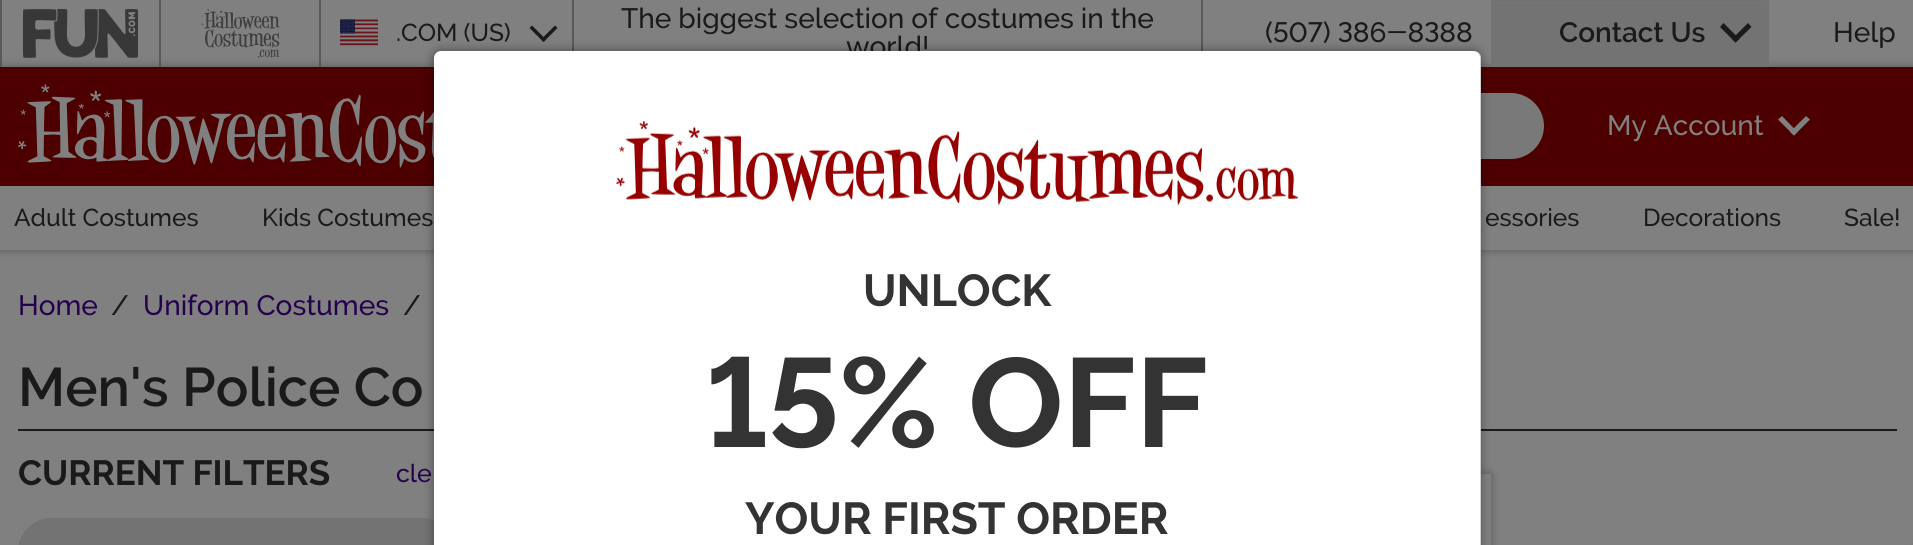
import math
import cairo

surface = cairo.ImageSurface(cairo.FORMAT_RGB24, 1913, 545)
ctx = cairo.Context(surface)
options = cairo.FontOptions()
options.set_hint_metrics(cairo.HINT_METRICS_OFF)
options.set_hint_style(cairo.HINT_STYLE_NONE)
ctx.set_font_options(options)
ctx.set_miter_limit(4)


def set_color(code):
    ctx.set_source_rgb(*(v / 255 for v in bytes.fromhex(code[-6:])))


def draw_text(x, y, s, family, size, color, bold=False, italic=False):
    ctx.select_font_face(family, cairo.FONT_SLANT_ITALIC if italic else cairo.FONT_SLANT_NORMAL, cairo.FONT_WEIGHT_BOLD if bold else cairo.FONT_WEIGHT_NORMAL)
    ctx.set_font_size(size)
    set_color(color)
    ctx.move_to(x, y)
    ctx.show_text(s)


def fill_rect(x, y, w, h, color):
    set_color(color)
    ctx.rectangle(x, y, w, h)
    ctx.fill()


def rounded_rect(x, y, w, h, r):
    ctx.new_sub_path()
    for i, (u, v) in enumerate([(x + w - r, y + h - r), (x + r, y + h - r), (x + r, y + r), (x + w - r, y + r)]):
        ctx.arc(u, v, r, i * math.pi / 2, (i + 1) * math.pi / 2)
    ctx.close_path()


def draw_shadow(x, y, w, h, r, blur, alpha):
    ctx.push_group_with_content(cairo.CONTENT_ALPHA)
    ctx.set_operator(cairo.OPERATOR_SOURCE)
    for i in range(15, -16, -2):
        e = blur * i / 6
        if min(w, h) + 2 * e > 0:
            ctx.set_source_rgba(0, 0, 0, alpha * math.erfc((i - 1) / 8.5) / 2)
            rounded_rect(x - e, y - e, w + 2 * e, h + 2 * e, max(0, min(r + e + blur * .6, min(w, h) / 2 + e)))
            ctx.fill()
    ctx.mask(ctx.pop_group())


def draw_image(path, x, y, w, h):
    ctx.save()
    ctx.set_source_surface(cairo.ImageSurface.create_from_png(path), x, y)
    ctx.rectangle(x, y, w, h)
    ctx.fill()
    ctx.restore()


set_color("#808080")
ctx.paint()
ctx.save()
ctx.set_fill_rule(cairo.FILL_RULE_EVEN_ODD)
ctx.new_path()
ctx.move_to(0, 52)
ctx.line_to(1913, 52)
ctx.line_to(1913, 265)
ctx.line_to(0, 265)
ctx.close_path()
ctx.move_to(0, 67)
ctx.line_to(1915, 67)
ctx.line_to(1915, 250)
ctx.line_to(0, 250)
ctx.close_path()
ctx.clip()
set_color("#000000")
draw_shadow(0, 67, 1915, 183, 0, 4.5, 0.3)
ctx.restore()
fill_rect(0, 0, 2, 67, "#575b5f")
draw_image("assets/img1.png", 23, 9, 115, 49)
fill_rect(159, 0, 2, 67, "#575b5f")
draw_image("assets/img2.png", 201, 9, 79, 49)
fill_rect(319, 0, 2, 67, "#575b5f")
draw_image("assets/img3.png", 340, 19, 38, 27)
draw_text(396, 41, ".COM (US)", "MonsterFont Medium", 24.5, "#1a1a1a")
ctx.new_path()
ctx.move_to(557.5, 28)
ctx.line_to(543.5, 42)
ctx.line_to(541, 39.5)
ctx.line_to(555, 25.5)
ctx.close_path()
ctx.fill()
ctx.new_path()
ctx.move_to(546, 39.5)
ctx.line_to(543.5, 42)
ctx.line_to(529.5, 28)
ctx.line_to(532, 25.5)
ctx.close_path()
ctx.fill()
fill_rect(572, 0, 2, 51, "#575b5f")
draw_text(621, 28, "The biggest selection of costumes in the", "MonsterFont Medium", 28, "#1a1a1a")
draw_text(846, 56, "world!", "MonsterFont Medium", 28, "#1a1a1a")
fill_rect(1201, 0, 2, 51, "#575b5f")
draw_text(1265, 42, "(507) 386-8388", "MonsterFont Medium", 28, "#1a1a1a")
fill_rect(1493, 4, 274, 60, "#737373")
fill_rect(1493, 2, 275, 2, "#757575")
ctx.rectangle(1492, 1, 276, 65)
set_color("#737373")
ctx.stroke()
draw_text(1559, 42, "Contact Us", "MonsterFont SemiBold", 28, "#1a1a1a")
ctx.new_path()
ctx.move_to(1751.5, 27)
ctx.line_to(1735.5, 42.5)
ctx.line_to(1732, 39)
ctx.line_to(1748, 23)
ctx.close_path()
ctx.fill()
ctx.new_path()
ctx.move_to(1739.5, 39)
ctx.line_to(1735.5, 42.5)
ctx.line_to(1720, 27)
ctx.line_to(1723.5, 23)
ctx.close_path()
ctx.fill()
draw_text(1833, 42, "Help", "MonsterFont Medium", 28, "#1a1a1a")
fill_rect(0, 67, 1913, 119, "#4d0000")
draw_image("assets/img4.png", 18, 84, 416, 84)
set_color("#797979")
ctx.new_path()
ctx.move_to(1471, 94)
ctx.line_to(1511, 94)
ctx.curve_to(1528.5, 94, 1543, 108.5, 1543, 126)
ctx.curve_to(1543, 143.5, 1528.5, 158, 1511, 158)
ctx.line_to(1471, 158)
ctx.close_path()
ctx.fill_preserve()
ctx.stroke()
draw_text(1607, 135, "My Account", "MonsterFont Medium", 28, "#808080")
ctx.new_path()
ctx.move_to(1810, 119.5)
ctx.line_to(1794, 135.5)
ctx.line_to(1790, 132)
ctx.line_to(1806, 116)
ctx.close_path()
ctx.fill()
ctx.new_path()
ctx.move_to(1797.5, 132)
ctx.line_to(1794, 135.5)
ctx.line_to(1778, 119.5)
ctx.line_to(1782, 116)
ctx.close_path()
ctx.fill()
draw_text(14, 226, "Adult Costumes", "MonsterFont Medium", 24.5, "#1a1a1a")
draw_text(262, 226, "Kids Costumes", "MonsterFont Medium", 24.5, "#1a1a1a")
draw_text(1485, 226, "essories", "MonsterFont Medium", 24.5, "#1a1a1a")
draw_text(1643, 226, "Decorations", "MonsterFont Medium", 24.5, "#1a1a1a")
draw_text(1844, 226, "Sale!", "MonsterFont Medium", 24.5, "#1a1a1a")
draw_text(18, 315, "Home", "MonsterFont Medium", 28, "#25014d")
draw_text(111, 315, "/", "MonsterFont Medium", 28, "#1a1a1a")
draw_text(143, 315, "Uniform Costumes", "MonsterFont Medium", 28, "#25014d")
draw_text(403, 315, "/", "MonsterFont Medium", 28, "#1a1a1a")
draw_text(18, 406, "Men's Police Co", "MonsterFont SemiBold", 54.25, "#1a1a1a")
fill_rect(18, 429, 1879, 2, "#1a1a1a")
draw_text(18, 485, "CURRENT FILTERS", "MonsterFont", 35, "#1a1a1a", bold=True)
draw_text(396, 482, "cle", "MonsterFont Medium", 25, "#25014d")
set_color("#737373")
rounded_rect(19, 519, 435, 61, 32.5)
ctx.fill_preserve()
ctx.stroke()
ctx.save()
ctx.set_fill_rule(cairo.FILL_RULE_EVEN_ODD)
ctx.new_path()
ctx.move_to(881, 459)
ctx.line_to(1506, 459)
ctx.line_to(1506, 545)
ctx.line_to(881, 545)
ctx.close_path()
ctx.move_to(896, 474)
ctx.line_to(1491, 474)
ctx.line_to(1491, 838)
ctx.line_to(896, 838)
ctx.close_path()
ctx.clip()
set_color("#000000")
draw_shadow(896, 474, 595, 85, 0, 4.5, 0.3)
ctx.restore()
ctx.save()
ctx.set_fill_rule(cairo.FILL_RULE_EVEN_ODD)
ctx.new_path()
ctx.move_to(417, 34)
ctx.line_to(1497, 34)
ctx.line_to(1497, 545)
ctx.line_to(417, 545)
ctx.close_path()
ctx.move_to(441, 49)
ctx.line_to(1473, 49)
ctx.curve_to(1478, 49, 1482, 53, 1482, 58)
ctx.line_to(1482, 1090)
ctx.curve_to(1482, 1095, 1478, 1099, 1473, 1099)
ctx.line_to(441, 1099)
ctx.curve_to(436, 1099, 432, 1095, 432, 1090)
ctx.line_to(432, 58)
ctx.curve_to(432, 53, 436, 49, 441, 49)
ctx.close_path()
ctx.clip()
set_color("#000000")
draw_shadow(432, 49, 1050, 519, 9, 4.5, 0.3)
ctx.restore()
set_color("#ffffff")
ctx.new_path()
ctx.move_to(441, 51)
ctx.line_to(1474, 51)
ctx.curve_to(1478, 51, 1481, 54, 1481, 58)
ctx.line_to(1481, 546)
ctx.line_to(434, 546)
ctx.line_to(434, 58)
ctx.curve_to(434, 54, 437, 51, 441, 51)
ctx.close_path()
ctx.fill()
rounded_rect(433, 50, 1048, 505, 8)
ctx.set_source_rgba(0, 0, 0, 0.18)
ctx.stroke()
draw_image("assets/img5.png", 616, 121, 683, 84)
draw_text(863, 306, "UNLOCK", "MonsterFont", 44.75, "#333333", bold=True)
draw_text(706, 447, "15% OFF", "MonsterFont", 126, "#333333", bold=True)
draw_text(745, 534, "YOUR FIRST ORDER", "MonsterFont", 44.75, "#333333", bold=True)
fill_rect(1911, 543, 2, 2, "#7b7b7b")
surface.write_to_png("output.png")
